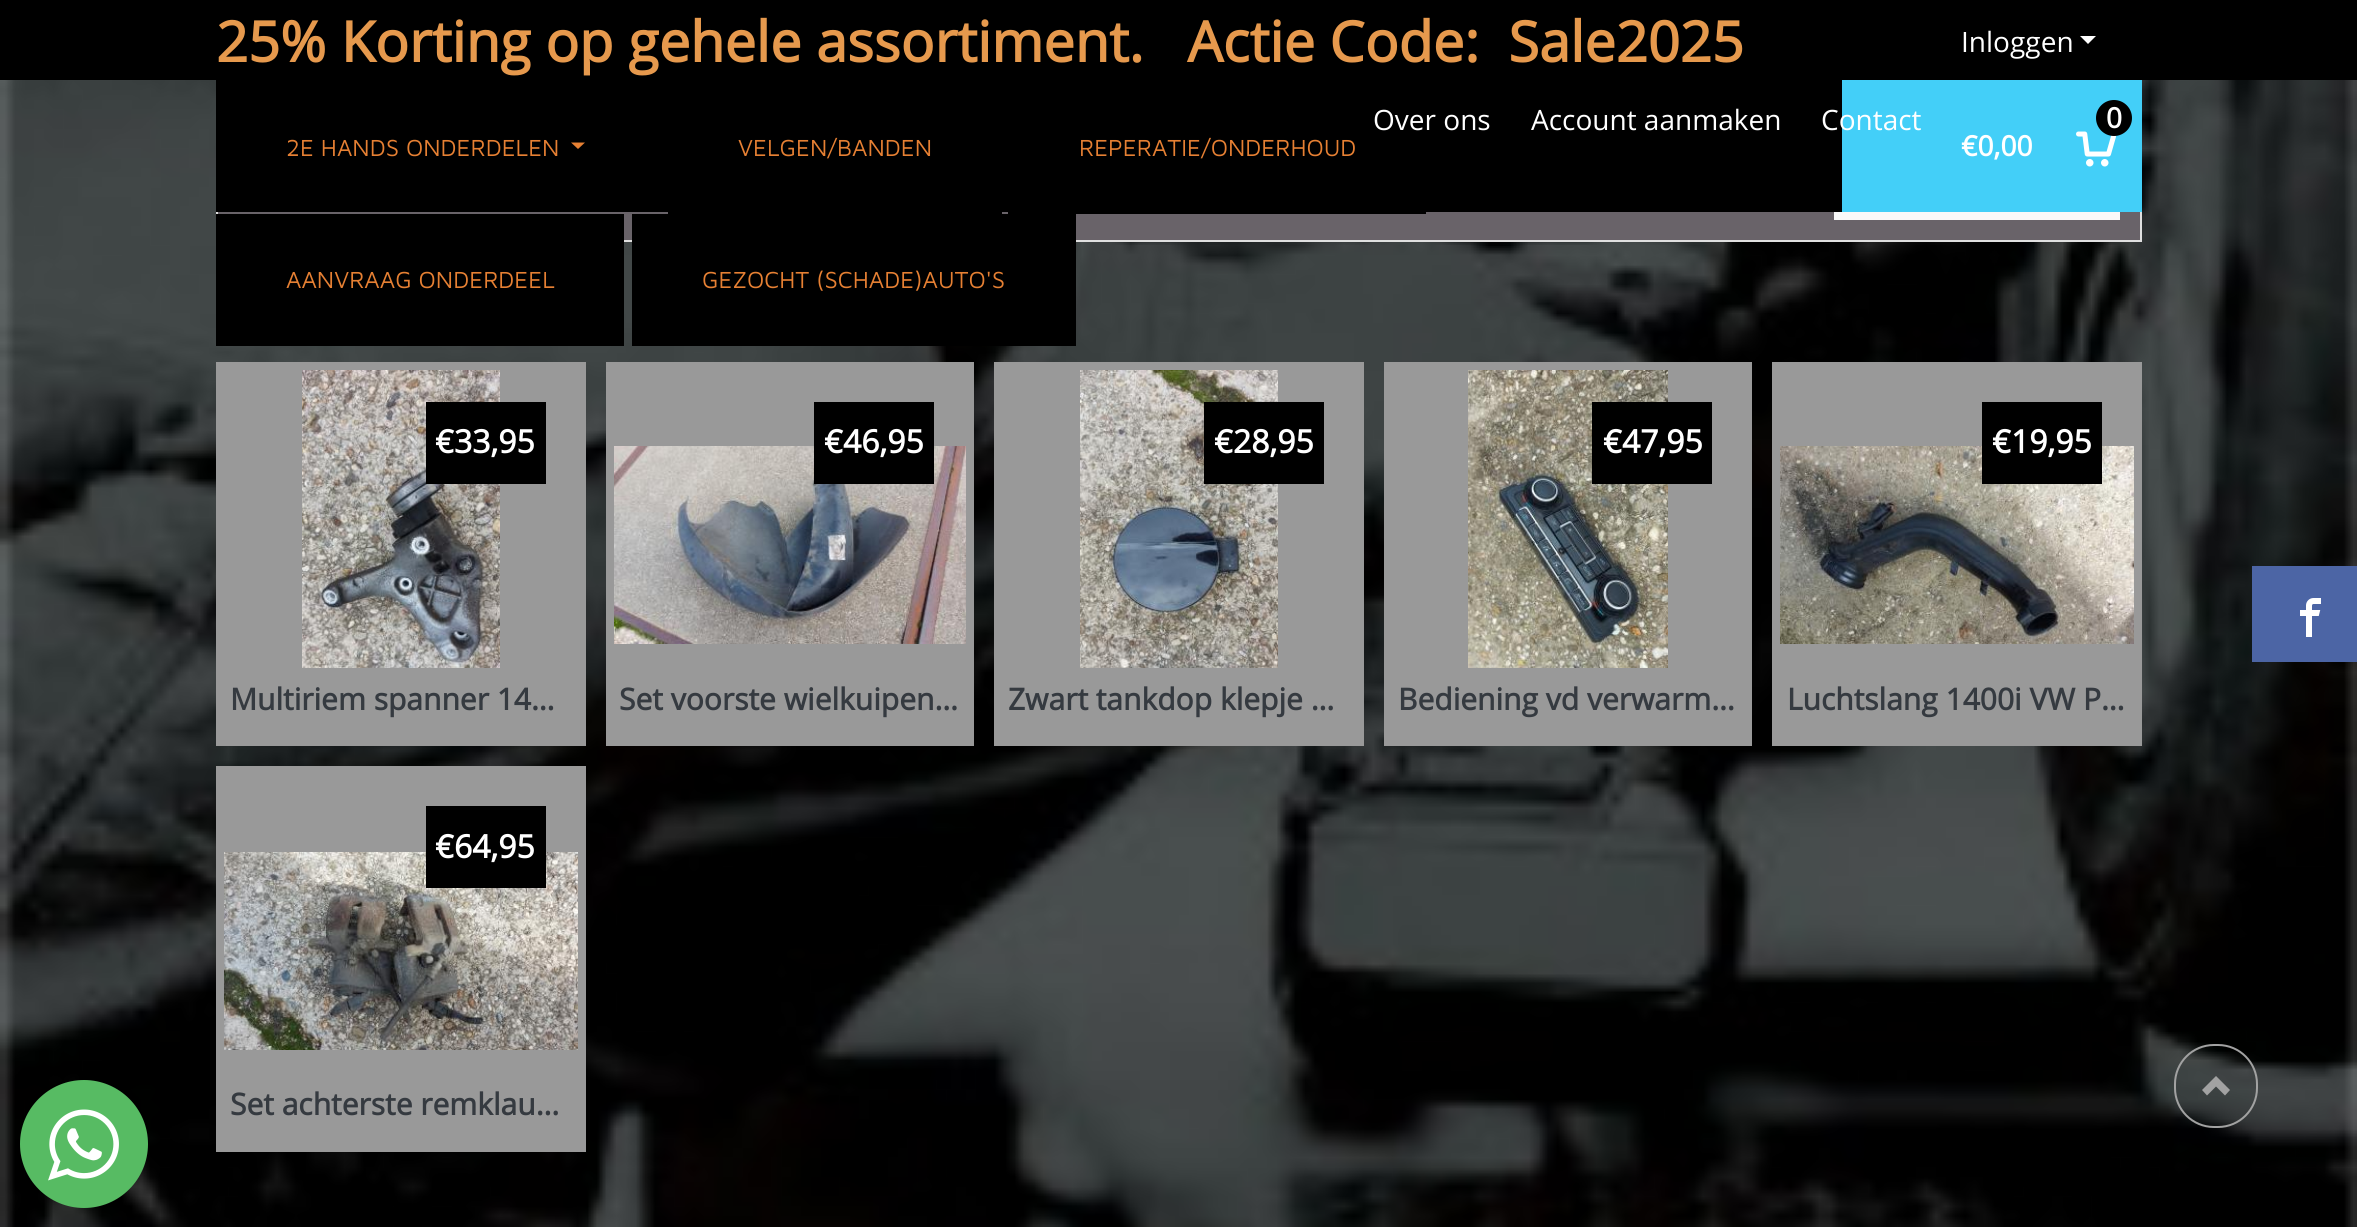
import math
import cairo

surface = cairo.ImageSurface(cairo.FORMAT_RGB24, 2357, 1227)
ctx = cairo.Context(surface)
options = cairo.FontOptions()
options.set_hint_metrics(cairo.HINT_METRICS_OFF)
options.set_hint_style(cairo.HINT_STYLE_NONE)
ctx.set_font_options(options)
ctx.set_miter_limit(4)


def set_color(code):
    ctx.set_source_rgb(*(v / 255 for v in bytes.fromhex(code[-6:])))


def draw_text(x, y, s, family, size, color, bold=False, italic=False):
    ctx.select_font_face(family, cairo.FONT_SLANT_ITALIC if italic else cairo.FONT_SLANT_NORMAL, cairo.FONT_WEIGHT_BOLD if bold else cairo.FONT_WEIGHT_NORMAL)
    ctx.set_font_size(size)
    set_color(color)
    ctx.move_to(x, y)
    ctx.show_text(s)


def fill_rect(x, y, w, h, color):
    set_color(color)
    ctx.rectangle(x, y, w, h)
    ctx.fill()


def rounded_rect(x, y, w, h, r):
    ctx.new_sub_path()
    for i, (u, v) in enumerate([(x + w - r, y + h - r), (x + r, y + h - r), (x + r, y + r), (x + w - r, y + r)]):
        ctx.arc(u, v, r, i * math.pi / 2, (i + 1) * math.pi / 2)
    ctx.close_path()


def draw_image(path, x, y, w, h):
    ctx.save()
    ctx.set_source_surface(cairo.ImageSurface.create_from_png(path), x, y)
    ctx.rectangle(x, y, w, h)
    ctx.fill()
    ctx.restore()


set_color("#ffffff")
ctx.paint()
draw_image("assets/img1.png", 0, 80, 2357, 1147)
fill_rect(218, 212, 1922, 28, "#696369")
ctx.rectangle(217, -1, 1924, 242)
set_color("#e0e0e0")
ctx.stroke()
fill_rect(0, 0, 2357, 80, "#000000")
draw_text(216, 62, "25% Korting op gehele assortiment.   Actie Code:  Sale2025", "Open Sans", 56, "#e6994d", bold=True)
draw_text(1961, 52, "Inloggen", "Open Sans", 28, "#ffffff")
ctx.new_path()
ctx.move_to(2080, 36)
ctx.line_to(2088, 44)
ctx.line_to(2096, 36)
ctx.close_path()
ctx.fill()
fill_rect(216, 80, 1626, 132, "#000000")
draw_text(1373, 130, "Over ons", "Open Sans", 28, "#ffffff")
draw_text(1531, 130, "Account aanmaken", "Open Sans", 28, "#ffffff")
fill_rect(1842, 80, 300, 132, "#43cff8")
draw_text(1821, 130, "Contact", "Open Sans", 28, "#ffffff")
draw_text(286, 156, "2E HANDS ONDERDELEN", "Maven Pro", 24, "#e68033")
ctx.new_path()
ctx.move_to(571, 142.5)
ctx.line_to(578, 149)
ctx.line_to(585, 142.5)
ctx.close_path()
ctx.fill()
fill_rect(668, 212, 334, 2, "#000000")
draw_text(738, 156, "VELGEN/BANDEN", "Maven Pro", 24, "#e68033")
fill_rect(1008, 212, 418, 2, "#000000")
draw_text(1079, 156, "REPERATIE/ONDERHOUD", "Maven Pro", 24, "#e68033")
fill_rect(216, 214, 408, 132, "#000000")
draw_text(286, 288, "AANVRAAG ONDERDEEL", "Maven Pro", 24, "#e68033")
fill_rect(632, 214, 444, 132, "#000000")
draw_text(702, 288, "GEZOCHT (SCHADE)AUTO'S", "Maven Pro", 24, "#e68033")
draw_image("assets/img2.png", 2076, 131, 40, 36)
set_color("#000000")
ctx.arc(2114, 118, 18, 0, 2 * math.pi)
ctx.fill()
draw_text(2106, 128, "0", "Open Sans", 28, "#ffffff", bold=True)
draw_text(1961, 156, "€0,00", "Open Sans", 28, "#ffffff", bold=True)
fill_rect(1834, 212, 286, 8, "#f9f9f9")
fill_rect(216, 362, 370, 384, "#999999")
draw_image("assets/img3.png", 302, 370, 198, 298)
fill_rect(426, 402, 120, 82, "#000000")
draw_text(435, 453, "€33,95", "Open Sans", 32, "#ffffff", bold=True)
draw_text(230, 710, "Multiriem spanner 14…", "Open Sans", 30, "#353a40", bold=True)
fill_rect(606, 362, 368, 384, "#999999")
draw_image("assets/img4.png", 614, 446, 352, 198)
fill_rect(814, 402, 120, 82, "#000000")
draw_text(824, 453, "€46,95", "Open Sans", 32, "#ffffff", bold=True)
draw_text(619, 710, "Set voorste wielkuipen…", "Open Sans", 30, "#353a40", bold=True)
fill_rect(994, 362, 370, 384, "#999999")
draw_image("assets/img5.png", 1080, 370, 198, 298)
fill_rect(1204, 402, 120, 82, "#000000")
draw_text(1214, 453, "€28,95", "Open Sans", 32, "#ffffff", bold=True)
draw_text(1008, 710, "Zwart tankdop klepje …", "Open Sans", 30, "#353a40", bold=True)
fill_rect(1384, 362, 368, 384, "#999999")
draw_image("assets/img6.png", 1468, 370, 200, 298)
fill_rect(1592, 402, 120, 82, "#000000")
draw_text(1603, 453, "€47,95", "Open Sans", 32, "#ffffff", bold=True)
draw_text(1398, 710, "Bediening vd verwarm…", "Open Sans", 30, "#353a40", bold=True)
fill_rect(1772, 362, 370, 384, "#999999")
draw_image("assets/img7.png", 1780, 446, 354, 198)
fill_rect(1982, 402, 120, 82, "#000000")
draw_text(1992, 453, "€19,95", "Open Sans", 32, "#ffffff", bold=True)
draw_text(1787, 710, "Luchtslang 1400i VW P…", "Open Sans", 30, "#353a40", bold=True)
fill_rect(216, 766, 370, 386, "#999999")
draw_image("assets/img8.png", 224, 852, 354, 198)
fill_rect(426, 806, 120, 82, "#000000")
draw_text(435, 858, "€64,95", "Open Sans", 32, "#ffffff", bold=True)
draw_text(230, 1115, "Set achterste remklau…", "Open Sans", 30, "#353a40", bold=True)
fill_rect(2252, 566, 105, 96, "#4c65a5")
draw_image("assets/img9.png", 2300, 598, 21, 39)
draw_image("assets/img10.png", 20, 1080, 128, 128)
rounded_rect(2175, 1045, 82, 82, 39)
set_color("#a2a2a2")
ctx.stroke()
ctx.new_path()
ctx.move_to(2202, 1090)
ctx.line_to(2207, 1095.5)
ctx.line_to(2216, 1086.5)
ctx.line_to(2225, 1095.5)
ctx.line_to(2230, 1090)
ctx.line_to(2216, 1076)
ctx.close_path()
ctx.fill()
surface.write_to_png("output.png")
